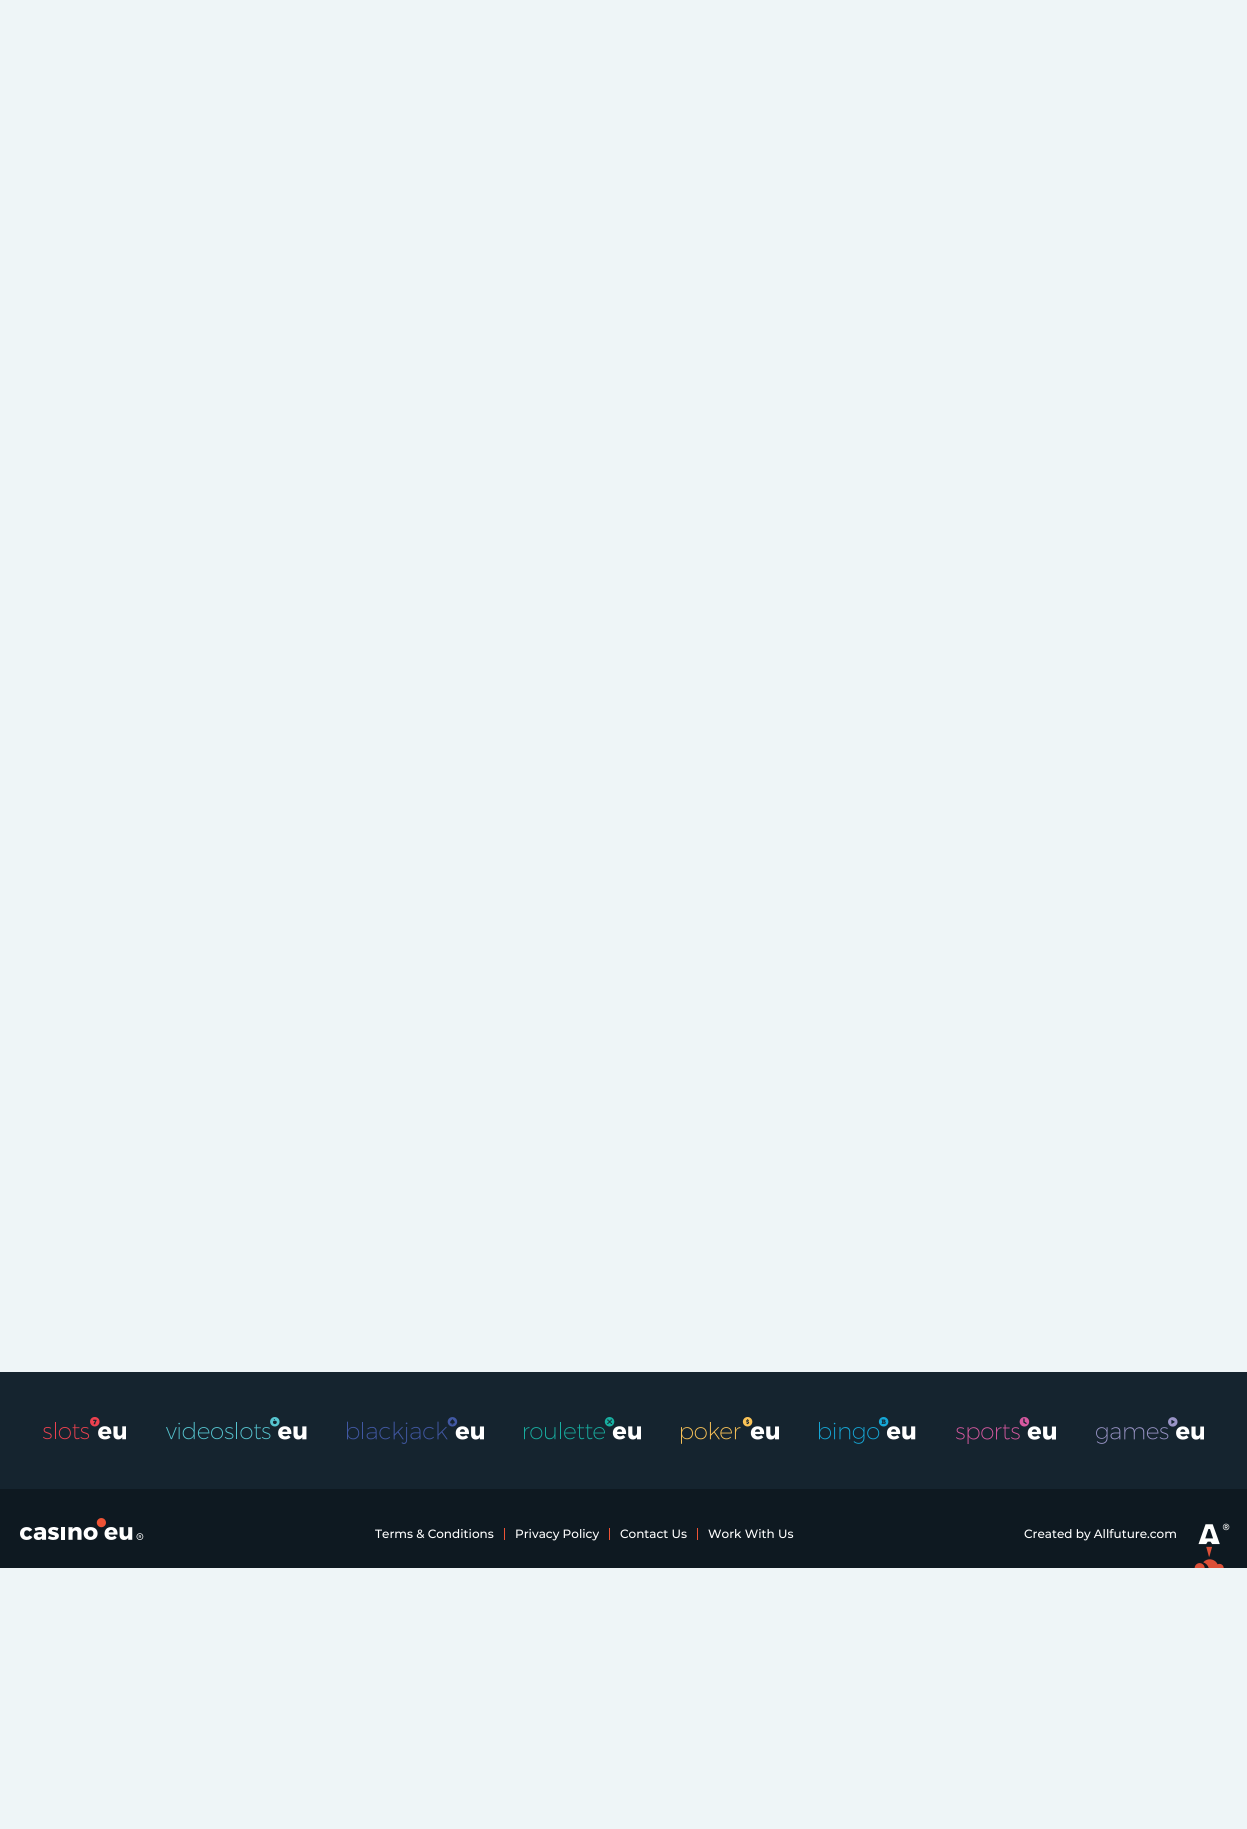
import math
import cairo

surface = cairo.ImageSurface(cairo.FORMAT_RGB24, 1247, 1829)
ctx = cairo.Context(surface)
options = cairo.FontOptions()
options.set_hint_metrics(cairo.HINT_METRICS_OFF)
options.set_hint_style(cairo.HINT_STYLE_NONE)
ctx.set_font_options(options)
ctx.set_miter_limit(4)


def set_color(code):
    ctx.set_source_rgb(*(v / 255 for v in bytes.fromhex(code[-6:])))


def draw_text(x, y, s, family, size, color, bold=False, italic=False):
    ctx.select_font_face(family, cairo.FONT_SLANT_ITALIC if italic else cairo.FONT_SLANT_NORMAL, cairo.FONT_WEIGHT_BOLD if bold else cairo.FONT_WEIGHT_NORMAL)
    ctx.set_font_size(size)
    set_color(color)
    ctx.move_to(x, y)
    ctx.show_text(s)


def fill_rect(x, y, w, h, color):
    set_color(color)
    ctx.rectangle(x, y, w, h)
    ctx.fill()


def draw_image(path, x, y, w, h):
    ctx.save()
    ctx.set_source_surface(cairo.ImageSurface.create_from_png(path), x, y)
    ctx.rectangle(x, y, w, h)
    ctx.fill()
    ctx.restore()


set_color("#eef5f7")
ctx.paint()
fill_rect(0, 1372, 1247, 117, "#15242f")
draw_image("assets/img1.png", 43, 1417, 83, 23)
draw_image("assets/img2.png", 166, 1417, 141, 23)
draw_image("assets/img3.png", 347, 1417, 137, 27)
draw_image("assets/img4.png", 524, 1417, 117, 23)
draw_image("assets/img5.png", 681, 1417, 98, 27)
draw_image("assets/img6.png", 819, 1417, 97, 27)
draw_image("assets/img7.png", 956, 1417, 100, 27)
draw_image("assets/img8.png", 1096, 1417, 108, 27)
fill_rect(0, 1489, 1247, 79, "#0e1921")
draw_image("assets/img9.png", 20, 1518, 124, 22)
draw_text(375, 1538, "Terms & Conditions", "Montserrat Medium", 12, "#ffffff")
fill_rect(504, 1528, 1, 12, "#ee5335")
draw_text(515, 1538, "Privacy Policy", "Montserrat Medium", 12, "#ffffff")
fill_rect(609, 1528, 1, 12, "#ee5335")
draw_text(620, 1538, "Contact Us", "Montserrat Medium", 12, "#ffffff")
fill_rect(697, 1528, 1, 12, "#ee5335")
draw_text(708, 1538, "Work With Us", "Montserrat Medium", 12, "#ffffff")
draw_text(1024, 1538, "Created by Allfuture.com", "Montserrat Medium", 12, "#ffffff")
draw_image("assets/img10.png", 1194, 1523, 36, 45)
surface.write_to_png("output.png")
